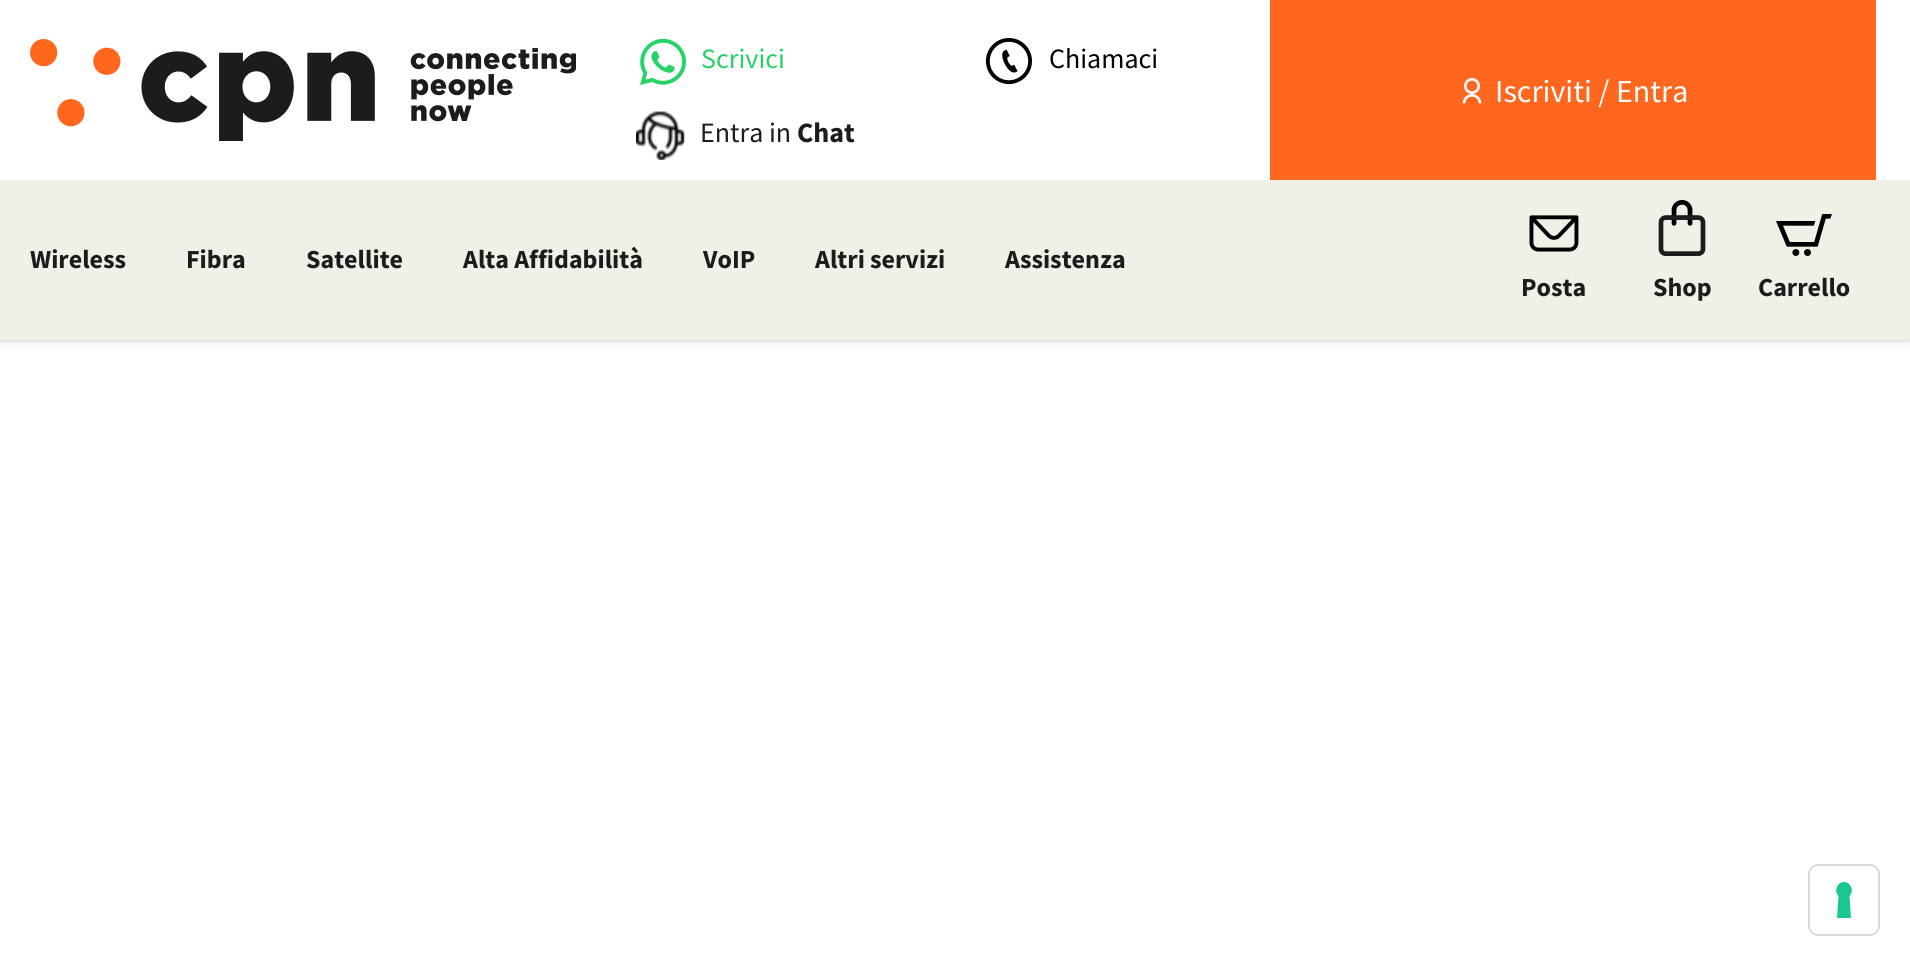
import math
import cairo

surface = cairo.ImageSurface(cairo.FORMAT_RGB24, 1910, 966)
ctx = cairo.Context(surface)
options = cairo.FontOptions()
options.set_hint_metrics(cairo.HINT_METRICS_OFF)
options.set_hint_style(cairo.HINT_STYLE_NONE)
ctx.set_font_options(options)
ctx.set_miter_limit(4)


def set_color(code):
    ctx.set_source_rgb(*(v / 255 for v in bytes.fromhex(code[-6:])))


def draw_text(x, y, s, family, size, color, bold=False, italic=False):
    ctx.select_font_face(family, cairo.FONT_SLANT_ITALIC if italic else cairo.FONT_SLANT_NORMAL, cairo.FONT_WEIGHT_BOLD if bold else cairo.FONT_WEIGHT_NORMAL)
    ctx.set_font_size(size)
    set_color(color)
    ctx.move_to(x, y)
    ctx.show_text(s)


def fill_rect(x, y, w, h, color):
    set_color(color)
    ctx.rectangle(x, y, w, h)
    ctx.fill()


def rounded_rect(x, y, w, h, r):
    ctx.new_sub_path()
    for i, (u, v) in enumerate([(x + w - r, y + h - r), (x + r, y + h - r), (x + r, y + r), (x + w - r, y + r)]):
        ctx.arc(u, v, r, i * math.pi / 2, (i + 1) * math.pi / 2)
    ctx.close_path()


def draw_shadow(x, y, w, h, r, blur, alpha):
    ctx.push_group_with_content(cairo.CONTENT_ALPHA)
    ctx.set_operator(cairo.OPERATOR_SOURCE)
    for i in range(15, -16, -2):
        e = blur * i / 6
        if min(w, h) + 2 * e > 0:
            ctx.set_source_rgba(0, 0, 0, alpha * math.erfc((i - 1) / 8.5) / 2)
            rounded_rect(x - e, y - e, w + 2 * e, h + 2 * e, max(0, min(r + e + blur * .6, min(w, h) / 2 + e)))
            ctx.fill()
    ctx.mask(ctx.pop_group())


def draw_image(path, x, y, w, h):
    ctx.save()
    ctx.set_source_surface(cairo.ImageSurface.create_from_png(path), x, y)
    ctx.rectangle(x, y, w, h)
    ctx.fill()
    ctx.restore()


set_color("#ffffff")
ctx.paint()
set_color("#000000")
draw_shadow(0, 2, 1910, 342, 0, 5, 0.07)
fill_rect(0, 340, 1910, 2, "#e7e7e7")
fill_rect(0, 0, 1910, 180, "#ffffff")
draw_image("assets/img1.png", 30, 39, 546, 102)
draw_image("assets/img2.png", 640, 38, 46, 47)
draw_text(701, 68, "Scrivici", "Source Sans Pro", 28, "#25d366")
draw_image("assets/img3.png", 985, 38, 47, 47)
draw_text(1049, 68, "Chiamaci", "Source Sans Pro", 28, "#000000")
draw_image("assets/img4.png", 636, 111, 49, 49)
draw_text(700, 142, "Entra in", "Source Sans Pro", 28, "#1d1b1c")
draw_text(797, 142, "Chat", "Source Sans Pro", 28, "#1d1b1c", bold=True)
fill_rect(1270, 0, 606, 180, "#ff671f")
draw_image("assets/img5.png", 1462, 78, 20, 26)
draw_text(1495, 102, "Iscriviti / Entra", "Source Sans Pro", 32, "#ffffff")
fill_rect(0, 180, 1910, 160, "#f0f0e7")
draw_text(30, 268, "Wireless", "Source Sans Pro", 26, "#1d1b1c", bold=True)
draw_text(186, 268, "Fibra", "Source Sans Pro", 26, "#1d1b1c", bold=True)
draw_text(306, 268, "Satellite", "Source Sans Pro", 26, "#1d1b1c", bold=True)
draw_text(463, 268, "Alta Affidabilità", "Source Sans Pro", 26, "#1d1b1c", bold=True)
draw_text(703, 268, "VoIP", "Source Sans Pro", 26, "#1d1b1c", bold=True)
draw_text(815, 268, "Altri servizi", "Source Sans Pro", 26, "#1d1b1c", bold=True)
draw_text(1005, 268, "Assistenza", "Source Sans Pro", 26, "#1d1b1c", bold=True)
draw_image("assets/img6.png", 1529, 215, 50, 37)
draw_text(1521, 296, "Posta", "Source Sans Pro", 26, "#1d1b1c", bold=True)
draw_image("assets/img7.png", 1658, 200, 48, 56)
draw_text(1653, 296, "Shop", "Source Sans Pro", 26, "#1d1b1c", bold=True)
draw_image("assets/img8.png", 1776, 214, 56, 42)
draw_text(1758, 296, "Carrello", "Source Sans Pro", 26, "#1d1b1c", bold=True)
rounded_rect(1809, 865, 70, 70, 9)
set_color("#d9d9d9")
ctx.stroke()
set_color("#ffffff")
rounded_rect(1810, 866, 68, 68, 8)
ctx.fill()
set_color("#1cc691")
ctx.set_fill_rule(cairo.FILL_RULE_EVEN_ODD)
ctx.new_path()
ctx.move_to(1844, 882)
ctx.curve_to(1851, 882, 1854.5, 891.5, 1849.5, 896)
ctx.line_to(1851, 918)
ctx.line_to(1837, 918)
ctx.line_to(1838.5, 896)
ctx.curve_to(1833.5, 891.5, 1837, 882, 1844, 882)
ctx.close_path()
ctx.fill()
surface.write_to_png("output.png")
